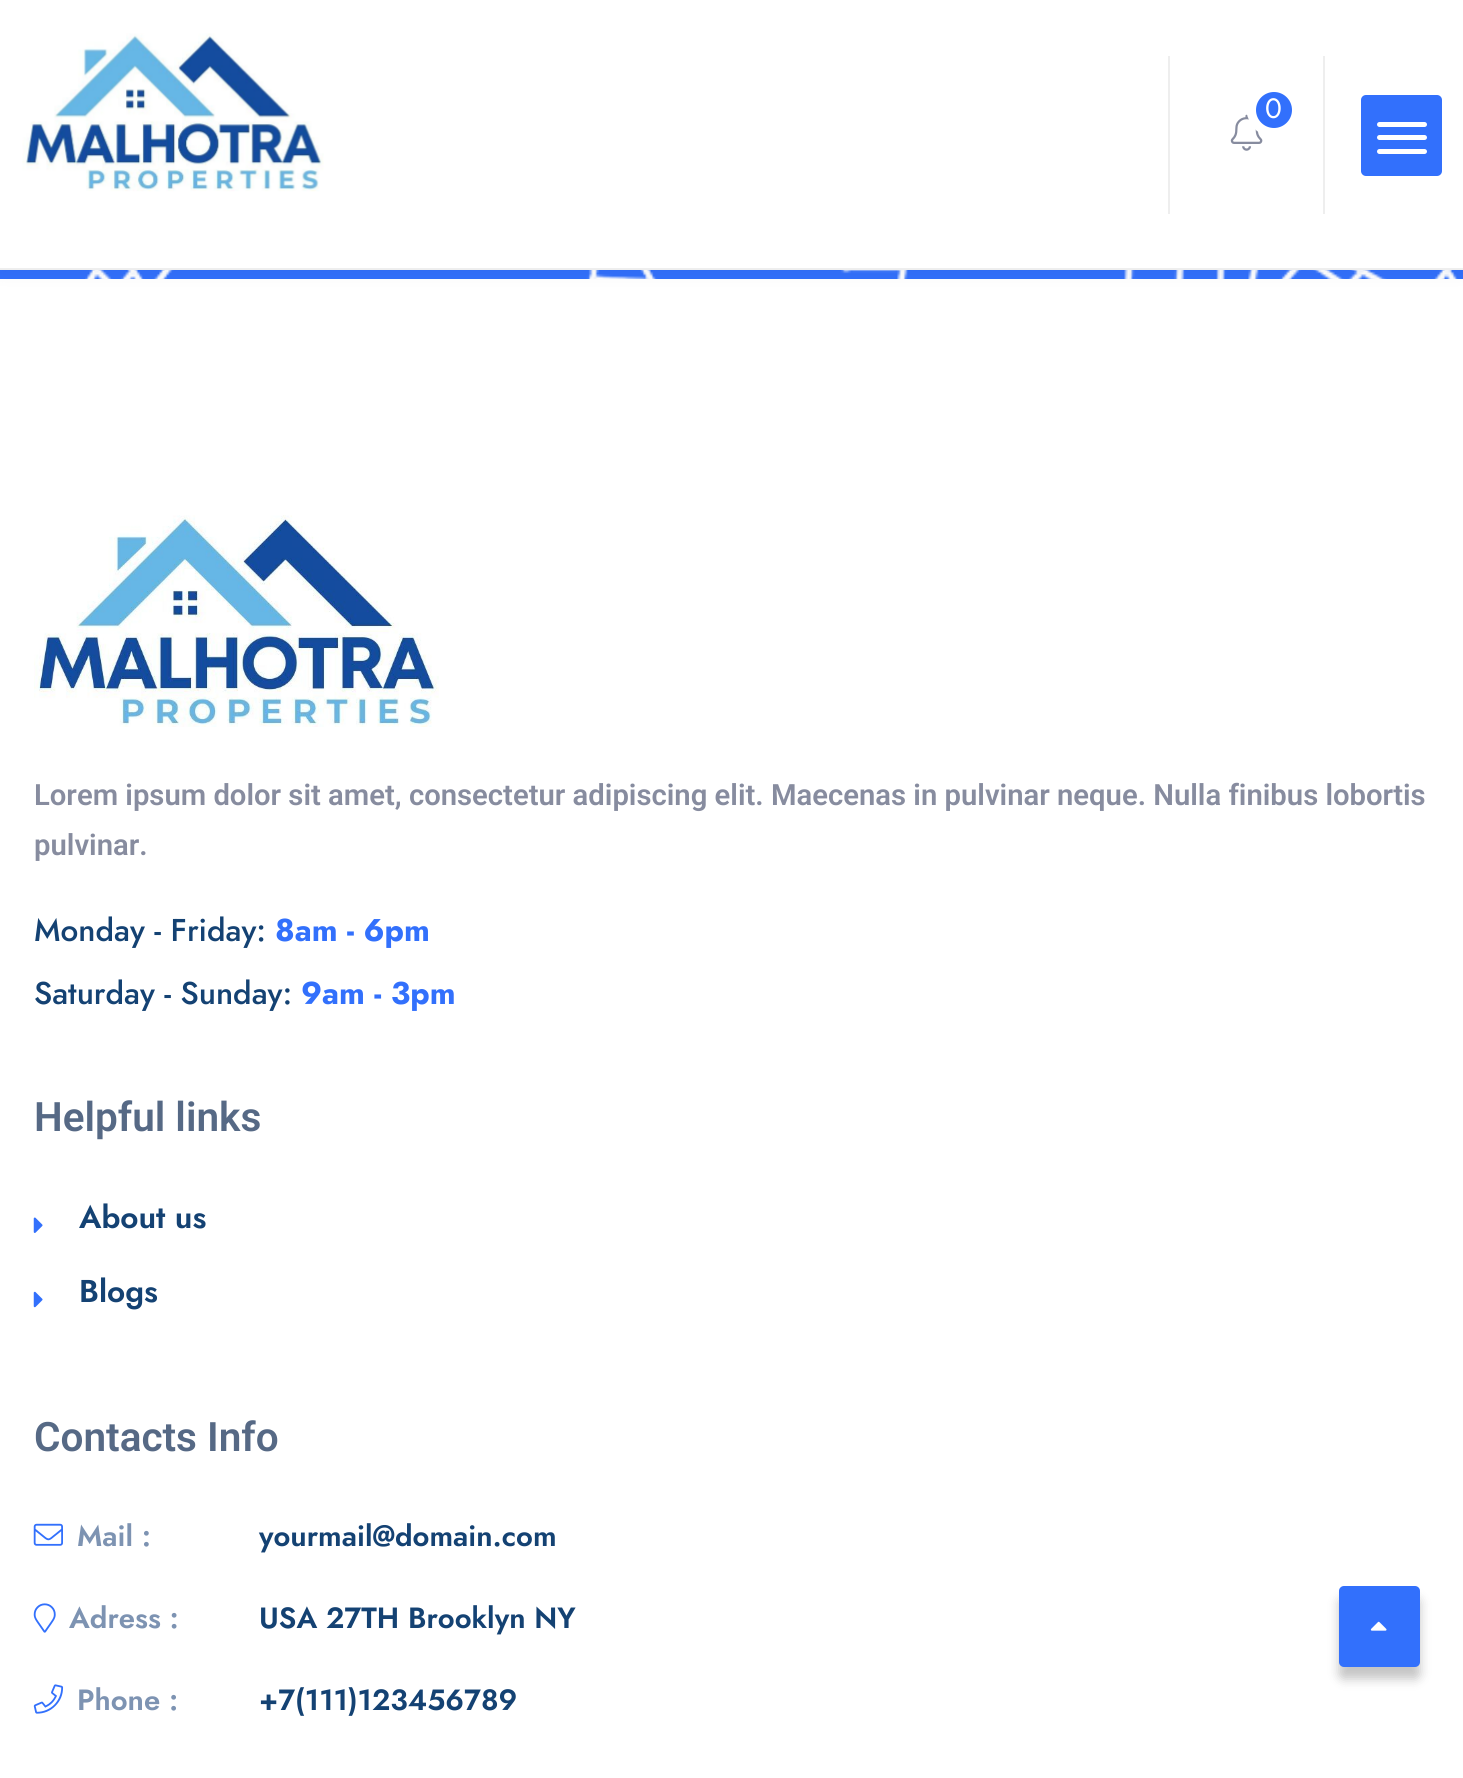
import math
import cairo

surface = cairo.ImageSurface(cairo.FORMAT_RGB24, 1463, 1778)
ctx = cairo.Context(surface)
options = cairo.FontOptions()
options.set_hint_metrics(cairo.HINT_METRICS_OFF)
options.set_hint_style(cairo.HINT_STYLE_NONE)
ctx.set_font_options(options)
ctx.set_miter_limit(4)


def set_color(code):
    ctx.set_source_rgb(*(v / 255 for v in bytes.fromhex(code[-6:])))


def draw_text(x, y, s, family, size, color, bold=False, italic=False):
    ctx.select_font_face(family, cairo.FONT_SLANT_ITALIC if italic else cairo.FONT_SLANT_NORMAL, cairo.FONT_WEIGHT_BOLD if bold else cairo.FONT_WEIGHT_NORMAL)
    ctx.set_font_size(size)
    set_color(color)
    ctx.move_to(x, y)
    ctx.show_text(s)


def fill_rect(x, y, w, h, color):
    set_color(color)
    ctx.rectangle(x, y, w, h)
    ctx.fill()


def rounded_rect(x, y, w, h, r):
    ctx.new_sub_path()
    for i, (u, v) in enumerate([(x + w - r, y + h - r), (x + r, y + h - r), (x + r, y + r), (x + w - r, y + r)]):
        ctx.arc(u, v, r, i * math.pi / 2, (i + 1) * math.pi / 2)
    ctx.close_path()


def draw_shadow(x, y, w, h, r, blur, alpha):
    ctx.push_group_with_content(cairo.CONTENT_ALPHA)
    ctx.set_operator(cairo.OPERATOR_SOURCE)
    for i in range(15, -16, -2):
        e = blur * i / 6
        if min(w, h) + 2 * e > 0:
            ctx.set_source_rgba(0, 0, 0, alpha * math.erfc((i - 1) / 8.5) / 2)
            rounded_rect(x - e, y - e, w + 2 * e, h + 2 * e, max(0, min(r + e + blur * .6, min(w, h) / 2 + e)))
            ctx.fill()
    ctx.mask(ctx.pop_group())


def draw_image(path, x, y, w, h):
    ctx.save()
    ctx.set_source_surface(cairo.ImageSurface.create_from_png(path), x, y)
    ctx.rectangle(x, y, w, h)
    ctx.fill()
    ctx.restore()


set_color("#ffffff")
ctx.paint()
fill_rect(0, 270, 1463, 9, "#3270fc")
draw_image("assets/img3.png", 85, 270, 1373, 9)
set_color("#000000")
draw_shadow(0, 0, 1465, 270, 0, 11, 0.07)
fill_rect(0, 0, 1463, 268, "#ffffff")
fill_rect(0, 268, 1463, 2, "#eeeeee")
draw_image("assets/img1.png", 22, 33, 302, 159)
fill_rect(1323, 56, 2, 158, "#eeeeee")
fill_rect(1168, 56, 2, 158, "#eeeeee")
draw_image("assets/img2.png", 1230, 114, 33, 37)
ctx.arc(1274, 110, 22.5, 0, 2 * math.pi)
set_color("#ffffff")
ctx.set_line_width(9)
ctx.stroke()
set_color("#3270fc")
ctx.arc(1274, 110, 18, 0, 2 * math.pi)
ctx.fill()
draw_text(1265, 118, "0", "Jost", 28, "#ffffff")
set_color("#3270fc")
rounded_rect(1361, 95, 81, 81, 5)
ctx.fill()
set_color("#ffffff")
rounded_rect(1377, 122, 50, 5, 2.5)
ctx.fill()
rounded_rect(1377, 135, 50, 5, 2.5)
ctx.fill()
rounded_rect(1377, 149, 50, 5, 2.5)
ctx.fill()
draw_image("assets/img4.png", 34, 515, 405, 212)
draw_text(34, 805, "Lorem ipsum dolor sit amet, consectetur adipiscing elit. Maecenas in pulvinar neque. Nulla finibus lobortis", "Roboto SemiBold", 29.25, "#878c9f")
draw_text(34, 855, "pulvinar.", "Roboto SemiBold", 29.25, "#878c9f")
draw_text(34, 941, "Monday - Friday:", "Jost Medium", 31.5, "#144273")
draw_text(275, 941, "8am - 6pm", "Jost", 31.5, "#3270fc", bold=True)
draw_text(34, 1004, "Saturday - Sunday:", "Jost Medium", 31.5, "#144273")
draw_text(301, 1004, "9am - 3pm", "Jost", 31.5, "#3270fc", bold=True)
draw_text(34, 1131, "Helpful links", "Roboto SemiBold", 40.5, "#566985")
draw_image("assets/img5.png", 33, 1217, 10, 16)
draw_text(79, 1228, "About us", "Jost SemiBold", 31.5, "#144273")
draw_image("assets/img6.png", 33, 1291, 10, 17)
draw_text(79, 1302, "Blogs", "Jost SemiBold", 31.5, "#144273")
draw_text(34, 1451, "Contacts Info", "Roboto SemiBold", 40.5, "#566985")
draw_image("assets/img7.png", 33, 1523, 30, 23)
draw_text(77, 1546, "Mail :", "Jost SemiBold", 29.25, "#7d93b2")
draw_text(259, 1546, "yourmail@domain.com", "Jost SemiBold", 29.25, "#144273")
draw_image("assets/img8.png", 33, 1603, 23, 30)
draw_text(69, 1628, "Adress :", "Jost SemiBold", 29.25, "#7d93b2")
draw_text(259, 1628, "USA 27TH Brooklyn NY", "Jost SemiBold", 29.25, "#144273")
draw_image("assets/img9.png", 33, 1684, 31, 30)
draw_text(77, 1710, "Phone :", "Jost SemiBold", 29.25, "#7d93b2")
draw_text(259, 1710, "+7(111)123456789", "Jost SemiBold", 29.25, "#144273")
set_color("#000000")
draw_shadow(1339, 1598, 81, 81, 5, 5.5, 0.23)
set_color("#3270fc")
rounded_rect(1339, 1586, 81, 81, 5)
ctx.fill()
draw_image("assets/img10.png", 1370, 1621, 17, 10)
surface.write_to_png("output.png")
